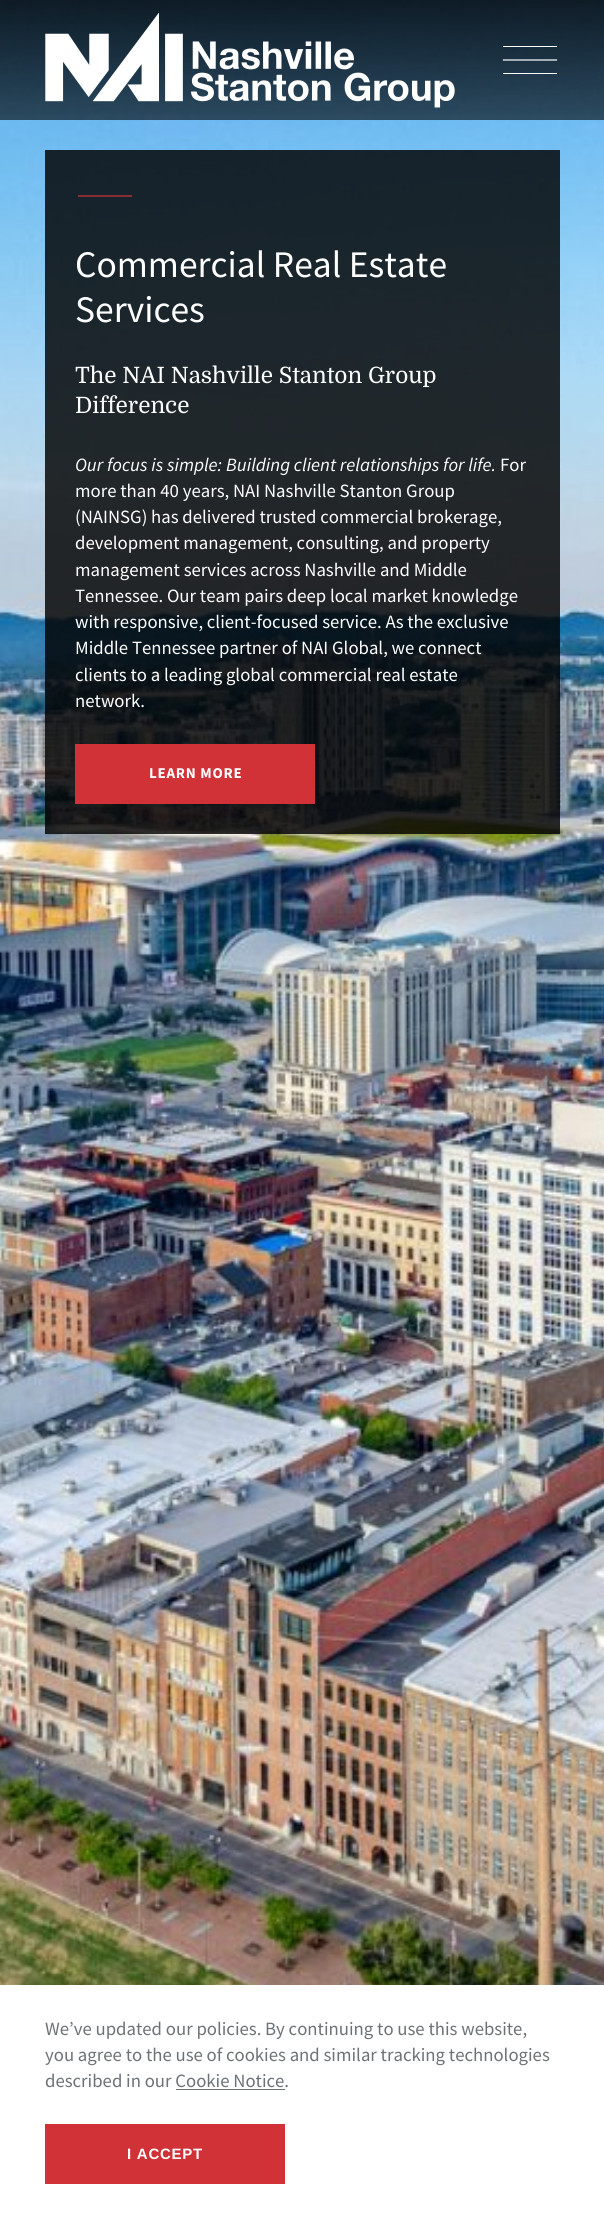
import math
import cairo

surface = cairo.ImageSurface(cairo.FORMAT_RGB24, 604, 2213)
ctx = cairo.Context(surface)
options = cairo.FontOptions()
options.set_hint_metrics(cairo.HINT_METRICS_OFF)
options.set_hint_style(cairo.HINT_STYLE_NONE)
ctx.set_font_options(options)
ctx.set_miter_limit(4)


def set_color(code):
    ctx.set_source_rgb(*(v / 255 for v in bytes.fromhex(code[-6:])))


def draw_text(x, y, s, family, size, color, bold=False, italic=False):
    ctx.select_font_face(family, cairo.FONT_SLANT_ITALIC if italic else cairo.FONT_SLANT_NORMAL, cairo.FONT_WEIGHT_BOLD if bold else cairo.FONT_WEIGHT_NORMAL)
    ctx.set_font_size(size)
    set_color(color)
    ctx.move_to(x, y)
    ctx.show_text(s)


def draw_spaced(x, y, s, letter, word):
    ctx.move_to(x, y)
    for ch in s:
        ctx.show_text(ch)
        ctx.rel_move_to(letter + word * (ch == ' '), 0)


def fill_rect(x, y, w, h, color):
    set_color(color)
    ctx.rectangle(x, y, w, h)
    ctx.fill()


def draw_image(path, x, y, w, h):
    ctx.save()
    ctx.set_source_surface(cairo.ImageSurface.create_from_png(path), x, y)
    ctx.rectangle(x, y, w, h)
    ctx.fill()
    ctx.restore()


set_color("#ffffff")
ctx.paint()
draw_image("assets/img2.png", 0, 0, 604, 1985)
ctx.set_source_rgba(0, 0, 0, 0.6)
ctx.rectangle(0, 0, 604, 120)
ctx.fill()
gradient = cairo.LinearGradient(303, 120, 303, 0)
gradient.add_color_stop_rgba(0, 0, 0, 0, 0)
gradient.add_color_stop_rgba(1, 0, 0, 0, 0.6)
ctx.set_source(gradient)
ctx.rectangle(0, 0, 604, 115)
ctx.fill()
draw_image("assets/img1.png", 45, 13, 410, 95)
fill_rect(503, 46, 54, 1, "#ffffff")
ctx.new_path()
ctx.move_to(556.5, 60)
ctx.line_to(503.5, 60)
ctx.set_line_width(1.2)
ctx.set_line_cap(cairo.LINE_CAP_SQUARE)
ctx.stroke()
fill_rect(503, 73, 54, 1, "#ffffff")
ctx.set_source_rgba(0, 0, 0, 0.82)
ctx.rectangle(45, 150, 515, 684)
ctx.fill()
ctx.new_path()
ctx.move_to(131.5, 196)
ctx.line_to(78.5, 196)
set_color("#d03238")
ctx.stroke()
draw_text(75, 277, "Commercial Real Estate", "Source Sans Pro", 37.5, "#ffffff")
draw_text(75, 322, "Services", "Source Sans Pro", 37.5, "#ffffff")
draw_text(75, 383, "The NAI Nashville Stanton Group", "Domine", 22.5, "#ffffff")
draw_text(75, 413, "Difference", "Domine", 22.5, "#ffffff")
draw_text(75, 471, "Our focus is simple: Building client relationships for life.", "Source Sans Pro", 18.75, "#ffffff", italic=True)
draw_text(500, 471, "For", "Source Sans Pro", 18.75, "#ffffff")
draw_text(75, 497, "more than 40 years, NAI Nashville Stanton Group", "Source Sans Pro", 18.75, "#ffffff")
draw_text(75, 523, "(NAINSG) has delivered trusted commercial brokerage,", "Source Sans Pro", 18.75, "#ffffff")
draw_text(75, 549, "development management, consulting, and property", "Source Sans Pro", 18.75, "#ffffff")
draw_text(75, 576, "management services across Nashville and Middle", "Source Sans Pro", 18.75, "#ffffff")
draw_text(75, 602, "Tennessee. Our team pairs deep local market knowledge", "Source Sans Pro", 18.75, "#ffffff")
draw_text(75, 628, "with responsive, client-focused service. As the exclusive", "Source Sans Pro", 18.75, "#ffffff")
draw_text(75, 654, "Middle Tennessee partner of NAI Global, we connect", "Source Sans Pro", 18.75, "#ffffff")
draw_text(75, 681, "clients to a leading global commercial real estate", "Source Sans Pro", 18.75, "#ffffff")
draw_text(75, 707, "network.", "Source Sans Pro", 18.75, "#ffffff")
fill_rect(75, 744, 240, 60, "#d03238")
ctx.select_font_face("Source Sans Pro", cairo.FONT_SLANT_NORMAL, cairo.FONT_WEIGHT_BOLD)
ctx.set_font_size(15)
set_color("#ffffff")
draw_spaced(149, 778, "LEARN MORE", 0.75, 0)
draw_text(45, 2035, "We’ve updated our policies. By continuing to use this website,", "Source Sans Pro", 18.75, "#6d7276")
draw_text(45, 2061, "you agree to the use of cookies and similar tracking technologies", "Source Sans Pro", 18.75, "#6d7276")
draw_text(45, 2087, "described in our Cookie Notice.", "Source Sans Pro", 18.75, "#6d7276")
fill_rect(176, 2089, 109, 1, "#6d7276")
fill_rect(45, 2124, 240, 60, "#d03238")
ctx.select_font_face("Liberation Sans", cairo.FONT_SLANT_NORMAL, cairo.FONT_WEIGHT_BOLD)
ctx.set_font_size(15)
set_color("#ffffff")
draw_spaced(127, 2159, "I ACCEPT", 0.75, 0)
surface.write_to_png("output.png")
